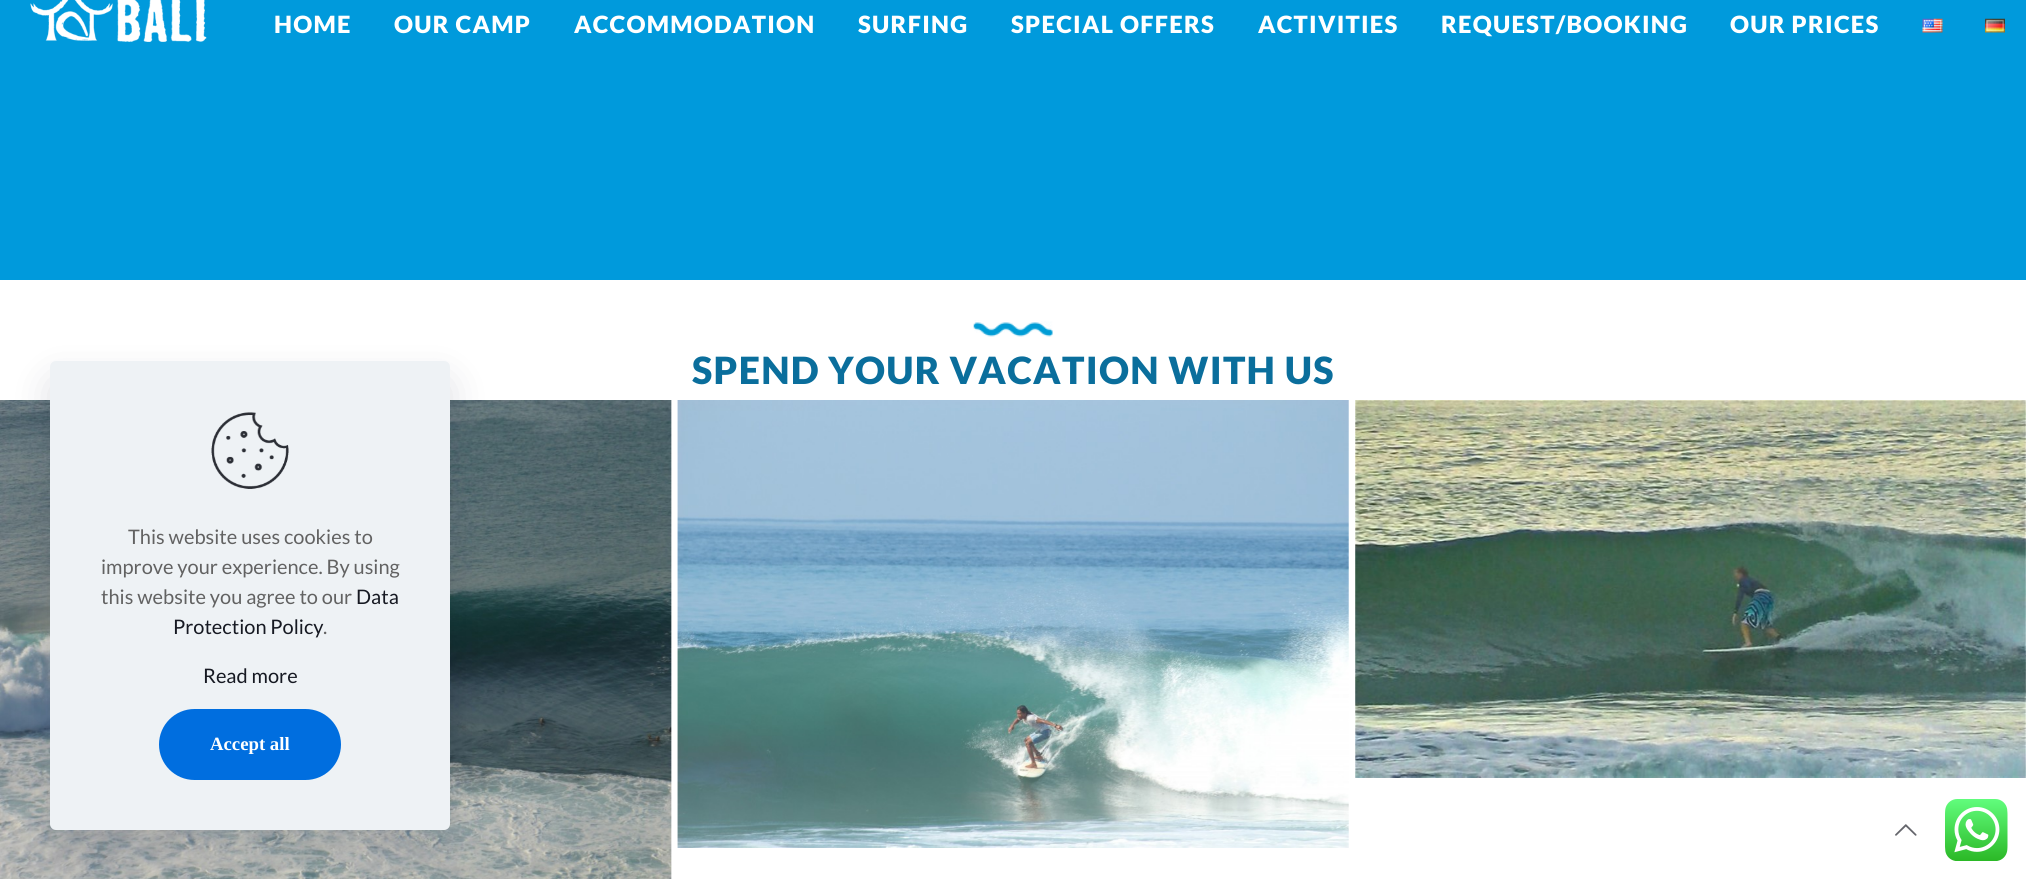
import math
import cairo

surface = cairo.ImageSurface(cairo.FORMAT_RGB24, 2026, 879)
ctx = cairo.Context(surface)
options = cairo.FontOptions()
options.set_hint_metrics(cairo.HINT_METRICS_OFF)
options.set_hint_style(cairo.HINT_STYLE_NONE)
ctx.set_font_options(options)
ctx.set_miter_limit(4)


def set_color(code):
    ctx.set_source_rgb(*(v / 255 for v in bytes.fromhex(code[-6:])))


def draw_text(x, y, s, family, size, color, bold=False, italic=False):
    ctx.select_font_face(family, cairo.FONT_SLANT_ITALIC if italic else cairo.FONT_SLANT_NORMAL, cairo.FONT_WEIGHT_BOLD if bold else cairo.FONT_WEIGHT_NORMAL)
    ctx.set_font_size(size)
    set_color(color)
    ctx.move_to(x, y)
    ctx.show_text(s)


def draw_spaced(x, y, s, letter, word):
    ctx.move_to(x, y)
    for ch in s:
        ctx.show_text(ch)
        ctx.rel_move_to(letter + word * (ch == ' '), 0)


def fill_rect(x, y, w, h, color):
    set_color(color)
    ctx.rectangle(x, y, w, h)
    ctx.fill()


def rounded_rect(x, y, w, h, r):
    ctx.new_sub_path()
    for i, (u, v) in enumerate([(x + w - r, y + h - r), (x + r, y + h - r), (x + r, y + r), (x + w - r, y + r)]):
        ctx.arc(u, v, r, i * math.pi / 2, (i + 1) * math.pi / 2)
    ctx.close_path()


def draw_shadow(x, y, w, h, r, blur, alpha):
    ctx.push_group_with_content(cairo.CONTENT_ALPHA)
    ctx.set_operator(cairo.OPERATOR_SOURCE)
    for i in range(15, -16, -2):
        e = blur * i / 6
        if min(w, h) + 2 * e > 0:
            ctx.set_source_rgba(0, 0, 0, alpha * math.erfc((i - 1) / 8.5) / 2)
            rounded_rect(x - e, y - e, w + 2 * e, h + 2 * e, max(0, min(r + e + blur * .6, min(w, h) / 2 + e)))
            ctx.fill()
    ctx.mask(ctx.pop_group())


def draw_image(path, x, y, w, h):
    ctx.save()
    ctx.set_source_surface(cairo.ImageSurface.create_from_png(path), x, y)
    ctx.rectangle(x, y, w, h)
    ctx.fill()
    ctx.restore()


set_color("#ffffff")
ctx.paint()
fill_rect(0, 0, 2026, 280, "#009adc")
draw_image("assets/img1.png", 30, 0, 177, 42)
ctx.select_font_face("Lato Black")
ctx.set_font_size(23.75)
set_color("#ffffff")
draw_spaced(274, 33, "HOME", 1.25, 0)
draw_spaced(394, 33, "OUR CAMP", 1.25, 0)
draw_spaced(574, 33, "ACCOMMODATION", 1.25, 0)
draw_spaced(858, 33, "SURFING", 1.25, 0)
draw_spaced(1011, 33, "SPECIAL OFFERS", 1.25, 0)
draw_spaced(1258, 33, "ACTIVITIES", 1.25, 0)
draw_spaced(1441, 33, "REQUEST/BOOKING", 1.25, 0)
draw_spaced(1730, 33, "OUR PRICES", 1.25, 0)
draw_image("assets/img2.png", 1922, 18, 21, 15)
draw_image("assets/img3.png", 1985, 18, 20, 15)
draw_image("assets/img4.png", 973, 320, 80, 17)
ctx.set_font_size(37.5)
set_color("#0a6e9c")
draw_spaced(692, 384, "SPEND YOUR VACATION WITH US", 1.25, 0)
draw_image("assets/img5.png", 0, 400, 672, 479)
draw_image("assets/img6.png", 677, 400, 672, 448)
draw_image("assets/img7.png", 1355, 400, 671, 378)
set_color("#010727")
draw_shadow(50, 380, 400, 469, 6, 19, 0.13)
set_color("#eef2f5")
rounded_rect(50, 361, 400, 469, 6)
ctx.fill()
draw_image("assets/img8.png", 211, 412, 78, 77)
draw_text(128, 544, "This website uses cookies to", "Lato", 20, "#626262")
draw_text(101, 574, "improve your experience. By using", "Lato", 20, "#626262")
draw_text(101, 604, "this website you agree to our", "Lato", 20, "#626262")
draw_text(356, 604, "Data", "Lato", 20, "#161922")
draw_text(173, 634, "Protection Policy", "Lato", 20, "#161922")
draw_text(323, 634, ".", "Lato", 20, "#626262")
draw_text(203, 683, "Read more", "Lato", 20, "#161922")
set_color("#006edf")
rounded_rect(159, 709, 182, 71, 35.5)
ctx.fill()
draw_text(210, 750, "Accept all", "Liberation Serif", 18.75, "#ffffff", bold=True)
draw_image("assets/img9.png", 1895, 824, 22, 12)
draw_image("assets/img10.png", 1945, 799, 63, 62)
surface.write_to_png("output.png")
